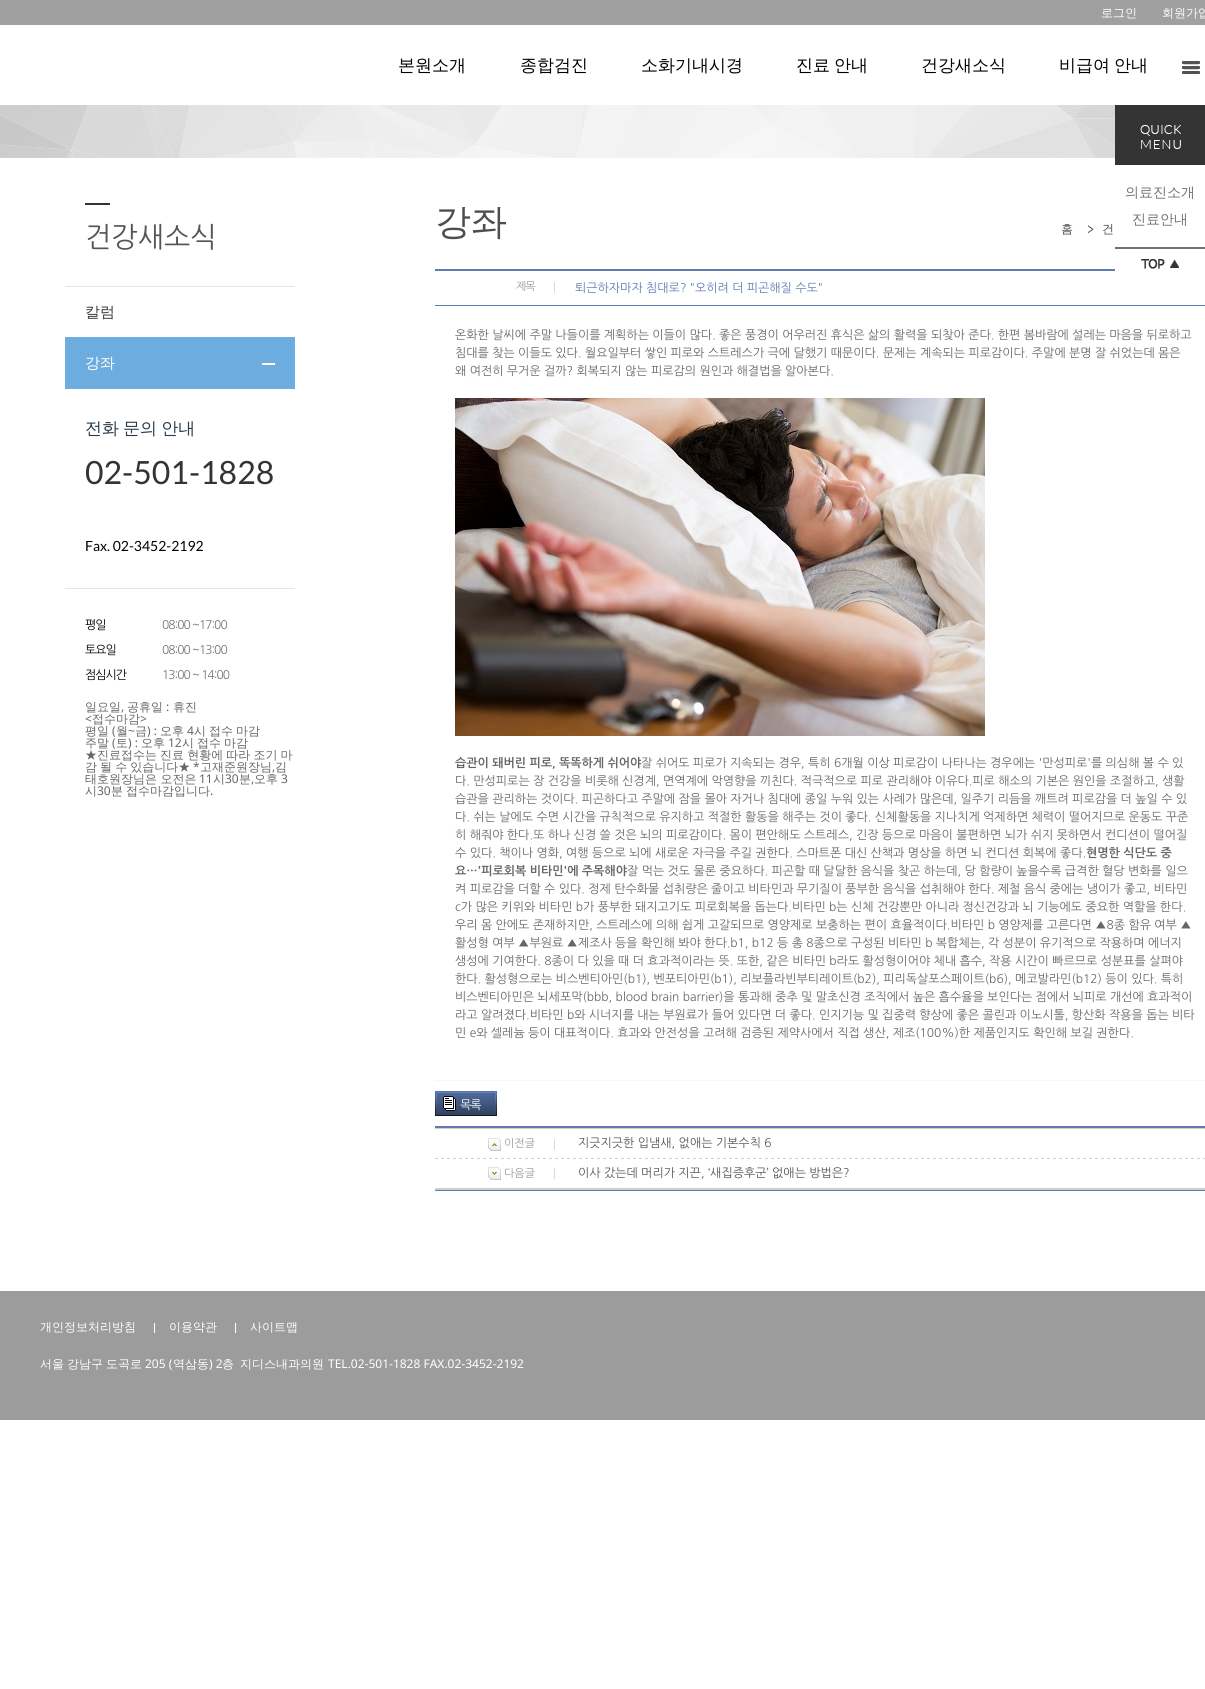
import math
import cairo

surface = cairo.ImageSurface(cairo.FORMAT_RGB24, 1205, 1689)
ctx = cairo.Context(surface)
options = cairo.FontOptions()
options.set_hint_metrics(cairo.HINT_METRICS_OFF)
options.set_hint_style(cairo.HINT_STYLE_NONE)
ctx.set_font_options(options)
ctx.set_miter_limit(4)


def set_color(code):
    ctx.set_source_rgb(*(v / 255 for v in bytes.fromhex(code[-6:])))


def draw_text(x, y, s, family, size, color, bold=False, italic=False):
    ctx.select_font_face(family, cairo.FONT_SLANT_ITALIC if italic else cairo.FONT_SLANT_NORMAL, cairo.FONT_WEIGHT_BOLD if bold else cairo.FONT_WEIGHT_NORMAL)
    ctx.set_font_size(size)
    set_color(color)
    ctx.move_to(x, y)
    ctx.show_text(s)


def draw_spaced(x, y, s, letter, word):
    ctx.move_to(x, y)
    for ch in s:
        ctx.show_text(ch)
        ctx.rel_move_to(letter + word * (ch == ' '), 0)


def fill_rect(x, y, w, h, color):
    set_color(color)
    ctx.rectangle(x, y, w, h)
    ctx.fill()


def draw_image(path, x, y, w, h):
    ctx.save()
    ctx.set_source_surface(cairo.ImageSurface.create_from_png(path), x, y)
    ctx.rectangle(x, y, w, h)
    ctx.fill()
    ctx.restore()


set_color("#ffffff")
ctx.paint()
fill_rect(0, 0, 1205, 25, "#a0a0a0")
draw_text(1101, 17, "로그인", "WenQuanYi Zen Hei Medium", 12, "#ffffff")
draw_text(1162, 17, "회원가입", "WenQuanYi Zen Hei Medium", 12, "#ffffff")
draw_text(398, 71, "본원소개", "WenQuanYi Zen Hei Medium", 17, "#000000")
draw_text(520, 71, "종합검진", "WenQuanYi Zen Hei Medium", 17, "#000000")
draw_text(641, 71, "소화기내시경", "WenQuanYi Zen Hei Medium", 17, "#000000")
draw_spaced(796, 71, "진료 안내", 0, -1)
draw_text(921, 71, "건강새소식", "WenQuanYi Zen Hei Medium", 17, "#000000")
draw_spaced(1059, 71, "비급여 안내", 0, -1)
draw_image("assets/img1.png", 1182, 61, 18, 13)
draw_image("assets/img2.png", 0, 105, 1115, 53)
fill_rect(85, 203, 25, 2, "#333333")
draw_text(85, 247, "건강새소식", "NanumGothic", 28, "#555555")
fill_rect(65, 337, 230, 52, "#6dacdf")
fill_rect(65, 286, 230, 1, "#e5e5e5")
draw_text(85, 317, "칼럼", "WenQuanYi Zen Hei Medium", 15, "#3a3c41")
draw_text(85, 368, "강좌", "WenQuanYi Zen Hei Medium", 15, "#ffffff")
fill_rect(262, 363, 13, 2, "#ffffff")
ctx.set_font_size(17)
set_color("#293b4c")
draw_spaced(85, 434, "전화 문의 안내", 0, -1)
draw_text(85, 484, "02-501-1828", "Lato", 32, "#333333")
draw_text(85, 551, "Fax. 02-3452-2192", "Lato", 14, "#000000")
fill_rect(65, 588, 230, 1, "#e5e5e5")
ctx.select_font_face("NanumGothic")
ctx.set_font_size(12)
set_color("#000000")
draw_spaced(85, 629, "평일", -1, 0)
set_color("#747474")
draw_spaced(162, 629, "08:00 ~17:00", -1, 0)
set_color("#000000")
draw_spaced(85, 654, "토요일", -1, 0)
set_color("#747474")
draw_spaced(162, 654, "08:00 ~13:00", -1, 0)
set_color("#000000")
draw_spaced(85, 679, "점심시간", -1, 0)
set_color("#747474")
draw_spaced(162, 679, "13:00 ~ 14:00", -1, 0)
draw_text(85, 711, "일요일", "WenQuanYi Zen Hei Medium", 12, "#666666")
draw_text(121, 711, ",", "Noto Sans", 12, "#666666")
draw_text(127, 711, "공휴일", "WenQuanYi Zen Hei Medium", 12, "#666666")
draw_text(166, 711, ":", "Noto Sans", 12, "#666666")
draw_text(173, 711, "휴진", "WenQuanYi Zen Hei Medium", 12, "#666666")
draw_text(85, 723, "<", "Noto Sans", 12, "#666666")
draw_text(92, 723, "접수마감", "WenQuanYi Zen Hei Medium", 12, "#666666")
draw_text(140, 723, ">", "Noto Sans", 12, "#666666")
draw_text(85, 735, "평일", "WenQuanYi Zen Hei Medium", 12, "#666666")
draw_text(112, 735, "(", "Noto Sans", 12, "#666666")
draw_text(116, 735, "월", "WenQuanYi Zen Hei Medium", 12, "#666666")
draw_text(128, 735, "~", "Noto Sans", 12, "#666666")
draw_text(135, 735, "금", "WenQuanYi Zen Hei Medium", 12, "#666666")
draw_text(147, 735, ") :", "Noto Sans", 12, "#666666")
draw_text(160, 735, "오후", "WenQuanYi Zen Hei Medium", 12, "#666666")
draw_text(187, 735, "4", "Noto Sans", 12, "#666666")
draw_text(194, 735, "시", "WenQuanYi Zen Hei Medium", 12, "#666666")
draw_text(209, 735, "접수", "WenQuanYi Zen Hei Medium", 12, "#666666")
draw_text(236, 735, "마감", "WenQuanYi Zen Hei Medium", 12, "#666666")
draw_text(85, 747, "주말", "WenQuanYi Zen Hei Medium", 12, "#666666")
draw_text(112, 747, "(", "Noto Sans", 12, "#666666")
draw_text(116, 747, "토", "WenQuanYi Zen Hei Medium", 12, "#666666")
draw_text(128, 747, ") :", "Noto Sans", 12, "#666666")
draw_text(141, 747, "오후", "WenQuanYi Zen Hei Medium", 12, "#666666")
draw_text(168, 747, "12", "Noto Sans", 12, "#666666")
draw_text(182, 747, "시", "WenQuanYi Zen Hei Medium", 12, "#666666")
draw_text(197, 747, "접수", "WenQuanYi Zen Hei Medium", 12, "#666666")
draw_text(224, 747, "마감", "WenQuanYi Zen Hei Medium", 12, "#666666")
draw_spaced(85, 759, "★진료접수는 진료 현황에 따라 조기 마", 0, -0.5)
draw_spaced(85, 771, "감 될 수 있습니다★", 0, -0.5)
draw_text(193, 771, "*", "Noto Sans", 12, "#666666")
draw_text(200, 771, "고재준원장님", "WenQuanYi Zen Hei Medium", 12, "#666666")
draw_text(272, 771, ",", "Noto Sans", 12, "#666666")
draw_text(275, 771, "김", "WenQuanYi Zen Hei Medium", 12, "#666666")
draw_text(85, 783, "태호원장님은 오전은", "WenQuanYi Zen Hei Medium", 12, "#666666")
draw_text(199, 783, "11", "Noto Sans", 12, "#666666")
draw_text(213, 783, "시", "WenQuanYi Zen Hei Medium", 12, "#666666")
draw_text(225, 783, "30", "Noto Sans", 12, "#666666")
draw_text(239, 783, "분", "WenQuanYi Zen Hei Medium", 12, "#666666")
draw_text(251, 783, ",", "Noto Sans", 12, "#666666")
draw_text(254, 783, "오후", "WenQuanYi Zen Hei Medium", 12, "#666666")
draw_text(281, 783, "3", "Noto Sans", 12, "#666666")
draw_text(85, 795, "시", "WenQuanYi Zen Hei Medium", 12, "#666666")
draw_text(97, 795, "30", "Noto Sans", 12, "#666666")
ctx.select_font_face("WenQuanYi Zen Hei Medium")
draw_spaced(111, 795, "분 접수마감입니다", 0, -0.5)
draw_text(210, 795, ".", "Noto Sans", 12, "#666666")
draw_text(435, 234, "강좌", "WenQuanYi Zen Hei Medium", 36, "#4e4e4e")
draw_text(1061, 233, "홈", "WenQuanYi Zen Hei Medium", 12, "#4e4e4e")
draw_image("assets/img3.png", 1088, 225, 6, 9)
draw_text(1102, 233, "건", "WenQuanYi Zen Hei Medium", 12, "#4e4e4e")
fill_rect(435, 269, 680, 2, "#5e7bb1")
fill_rect(435, 305, 770, 1, "#5e7bb1")
fill_rect(554, 282, 1, 11, "#d9d9d9")
ctx.select_font_face("NanumGothic")
ctx.set_font_size(11)
set_color("#989898")
draw_spaced(516, 290, "제목", -1, 0)
draw_text(575, 292, "퇴근하자마자 침대로? \"오히려 더 피곤해질 수도\"", "NanumGothic", 12, "#5e7bb1")
fill_rect(435, 1080, 770, 1, "#f7f7f7")
draw_text(455, 339, "온화한 날씨에 주말 나들이를 계획하는 이들이 많다. 좋은 풍경이 어우러진 휴식은 삶의 활력을 되찾아 준다. 한편 봄바람에 설레는 마음을 뒤로하고", "NanumGothic", 12, "#666666")
draw_text(455, 357, "침대를 찾는 이들도 있다. 월요일부터 쌓인 피로와 스트레스가 극에 달했기 때문이다. 문제는 계속되는 피로감이다. 주말에 분명 잘 쉬었는데 몸은", "NanumGothic", 12, "#666666")
draw_text(455, 375, "왜 여전히 무거운 걸까? 회복되지 않는 피로감의 원인과 해결법을 알아본다.", "NanumGothic", 12, "#666666")
draw_image("assets/img4.png", 455, 398, 530, 338)
draw_text(455, 767, "습관이 돼버린 피로, 똑똑하게 쉬어야", "NanumGothic", 12, "#666666", bold=True)
draw_text(641, 767, "잘 쉬어도 피로가 지속되는 경우, 특히 6개월 이상 피로감이 나타나는 경우에는 '만성피로'를 의심해 볼 수 있", "NanumGothic", 12, "#666666")
draw_text(455, 785, "다. 만성피로는 장 건강을 비롯해 신경계, 면역계에 악영향을 끼친다. 적극적으로 피로 관리해야 이유다.피로 해소의 기본은 원인을 조절하고, 생활", "NanumGothic", 12, "#666666")
draw_text(455, 803, "습관을 관리하는 것이다. 피곤하다고 주말에 잠을 몰아 자거나 침대에 종일 누워 있는 사례가 많은데, 일주기 리듬을 깨트려 피로감을 더 높일 수 있", "NanumGothic", 12, "#666666")
draw_text(455, 821, "다. 쉬는 날에도 수면 시간을 규칙적으로 유지하고 적절한 활동을 해주는 것이 좋다. 신체활동을 지나치게 억제하면 체력이 떨어지므로 운동도 꾸준", "NanumGothic", 12, "#666666")
draw_text(455, 839, "히 해줘야 한다.또 하나 신경 쓸 것은 뇌의 피로감이다. 몸이 편안해도 스트레스, 긴장 등으로 마음이 불편하면 뇌가 쉬지 못하면서 컨디션이 떨어질", "NanumGothic", 12, "#666666")
draw_text(455, 857, "수 있다. 책이나 영화, 여행 등으로 뇌에 새로운 자극을 주길 권한다. 스마트폰 대신 산책과 명상을 하면 뇌 컨디션 회복에 좋다.", "NanumGothic", 12, "#666666")
draw_text(1086, 857, "현명한 식단도 중", "NanumGothic", 12, "#666666", bold=True)
draw_text(455, 875, "요…'피로회복 비타민'에 주목해야", "NanumGothic", 12, "#666666", bold=True)
draw_text(627, 875, "잘 먹는 것도 물론 중요하다. 피곤할 때 달달한 음식을 찾곤 하는데, 당 함량이 높을수록 급격한 혈당 변화를 일으", "NanumGothic", 12, "#666666")
draw_text(455, 893, "켜 피로감을 더할 수 있다. 정제 탄수화물 섭취량은 줄이고 비타민과 무기질이 풍부한 음식을 섭취해야 한다. 제철 음식 중에는 냉이가 좋고, 비타민", "NanumGothic", 12, "#666666")
draw_text(455, 911, "c가 많은 키위와 비타민 b가 풍부한 돼지고기도 피로회복을 돕는다.비타민 b는 신체 건강뿐만 아니라 정신건강과 뇌 기능에도 중요한 역할을 한다.", "NanumGothic", 12, "#666666")
draw_text(455, 929, "우리 몸 안에도 존재하지만, 스트레스에 의해 쉽게 고갈되므로 영양제로 보충하는 편이 효율적이다.비타민 b 영양제를 고른다면 ▲8종 함유 여부 ▲", "NanumGothic", 12, "#666666")
draw_text(455, 947, "활성형 여부 ▲부원료 ▲제조사 등을 확인해 봐야 한다.b1, b12 등 총 8종으로 구성된 비타민 b 복합체는, 각 성분이 유기적으로 작용하며 에너지", "NanumGothic", 12, "#666666")
draw_text(455, 965, "생성에 기여한다. 8종이 다 있을 때 더 효과적이라는 뜻. 또한, 같은 비타민 b라도 활성형이어야 체내 흡수, 작용 시간이 빠르므로 성분표를 살펴야", "NanumGothic", 12, "#666666")
draw_text(455, 983, "한다. 활성형으로는 비스벤티아민(b1), 벤포티아민(b1), 리보플라빈부티레이트(b2), 피리독살포스페이트(b6), 메코발라민(b12) 등이 있다. 특히", "NanumGothic", 12, "#666666")
draw_text(455, 1001, "비스벤티아민은 뇌세포막(bbb, blood brain barrier)을 통과해 중추 및 말초신경 조직에서 높은 흡수율을 보인다는 점에서 뇌피로 개선에 효과적이", "NanumGothic", 12, "#666666")
draw_text(455, 1019, "라고 알려졌다.비타민 b와 시너지를 내는 부원료가 들어 있다면 더 좋다. 인지기능 및 집중력 향상에 좋은 콜린과 이노시톨, 항산화 작용을 돕는 비타", "NanumGothic", 12, "#666666")
draw_text(455, 1037, "민 e와 셀레늄 등이 대표적이다. 효과와 안전성을 고려해 검증된 제약사에서 직접 생산, 제조(100%)한 제품인지도 확인해 보길 권한다.", "NanumGothic", 12, "#666666")
draw_image("assets/img5.png", 435, 1091, 62, 25)
set_color("#ffffff")
draw_spaced(460, 1109, "목록", -1, 0)
fill_rect(435, 1126, 770, 2, "#5e7bb1")
fill_rect(435, 1190, 770, 1, "#5e7bb1")
draw_image("assets/img6.png", 435, 1158, 770, 1)
fill_rect(435, 1128, 770, 1, "#cfcfcf")
fill_rect(554, 1139, 1, 11, "#d9d9d9")
draw_image("assets/img7.png", 488, 1138, 13, 13)
draw_text(504, 1147, "이전글", "NanumGothic", 11, "#989898")
draw_text(578, 1147, "지긋지긋한 입냄새, 없애는 기본수칙 6", "NanumGothic", 12, "#555555")
fill_rect(435, 1188, 770, 2, "#cfcfcf")
fill_rect(554, 1168, 1, 11, "#d9d9d9")
draw_image("assets/img8.png", 488, 1167, 13, 13)
draw_text(504, 1177, "다음글", "NanumGothic", 11, "#989898")
draw_text(578, 1177, "이사 갔는데 머리가 지끈, ‘새집증후군’ 없애는 방법은?", "NanumGothic", 12, "#555555")
fill_rect(0, 1291, 1205, 129, "#9c9c9c")
draw_text(40, 1331, "개인정보처리방침", "WenQuanYi Zen Hei Medium", 12, "#ffffff")
fill_rect(154, 1323, 1, 10, "#ffffff")
draw_text(169, 1331, "이용약관", "WenQuanYi Zen Hei Medium", 12, "#ffffff")
fill_rect(235, 1323, 1, 10, "#ffffff")
draw_text(250, 1331, "사이트맵", "WenQuanYi Zen Hei Medium", 12, "#ffffff")
draw_text(40, 1368, "서울", "WenQuanYi Zen Hei Medium", 12, "#ffffff")
draw_text(67, 1368, "강남구", "WenQuanYi Zen Hei Medium", 12, "#ffffff")
draw_text(106, 1368, "도곡로", "WenQuanYi Zen Hei Medium", 12, "#ffffff")
draw_text(145, 1368, "205 (", "Noto Sans", 12, "#ffffff")
draw_text(173, 1368, "역삼동", "WenQuanYi Zen Hei Medium", 12, "#ffffff")
draw_text(209, 1368, ") 2", "Noto Sans", 12, "#ffffff")
draw_text(222, 1368, "층", "WenQuanYi Zen Hei Medium", 12, "#ffffff")
draw_text(240, 1368, "지디스내과의원", "WenQuanYi Zen Hei Medium", 12, "#ffffff")
draw_text(328, 1368, "TEL.02-501-1828 FAX.02-3452-2192", "Noto Sans", 12, "#ffffff")
fill_rect(1115, 105, 90, 60, "#343434")
draw_image("assets/img9.png", 1140, 125, 41, 24)
draw_text(1125, 197, "의료진소개", "WenQuanYi Zen Hei Medium", 14, "#747474")
draw_text(1132, 224, "진료안내", "WenQuanYi Zen Hei Medium", 14, "#747474")
fill_rect(1115, 247, 90, 2, "#727272")
draw_image("assets/img10.png", 1141, 259, 38, 10)
surface.write_to_png("output.png")
